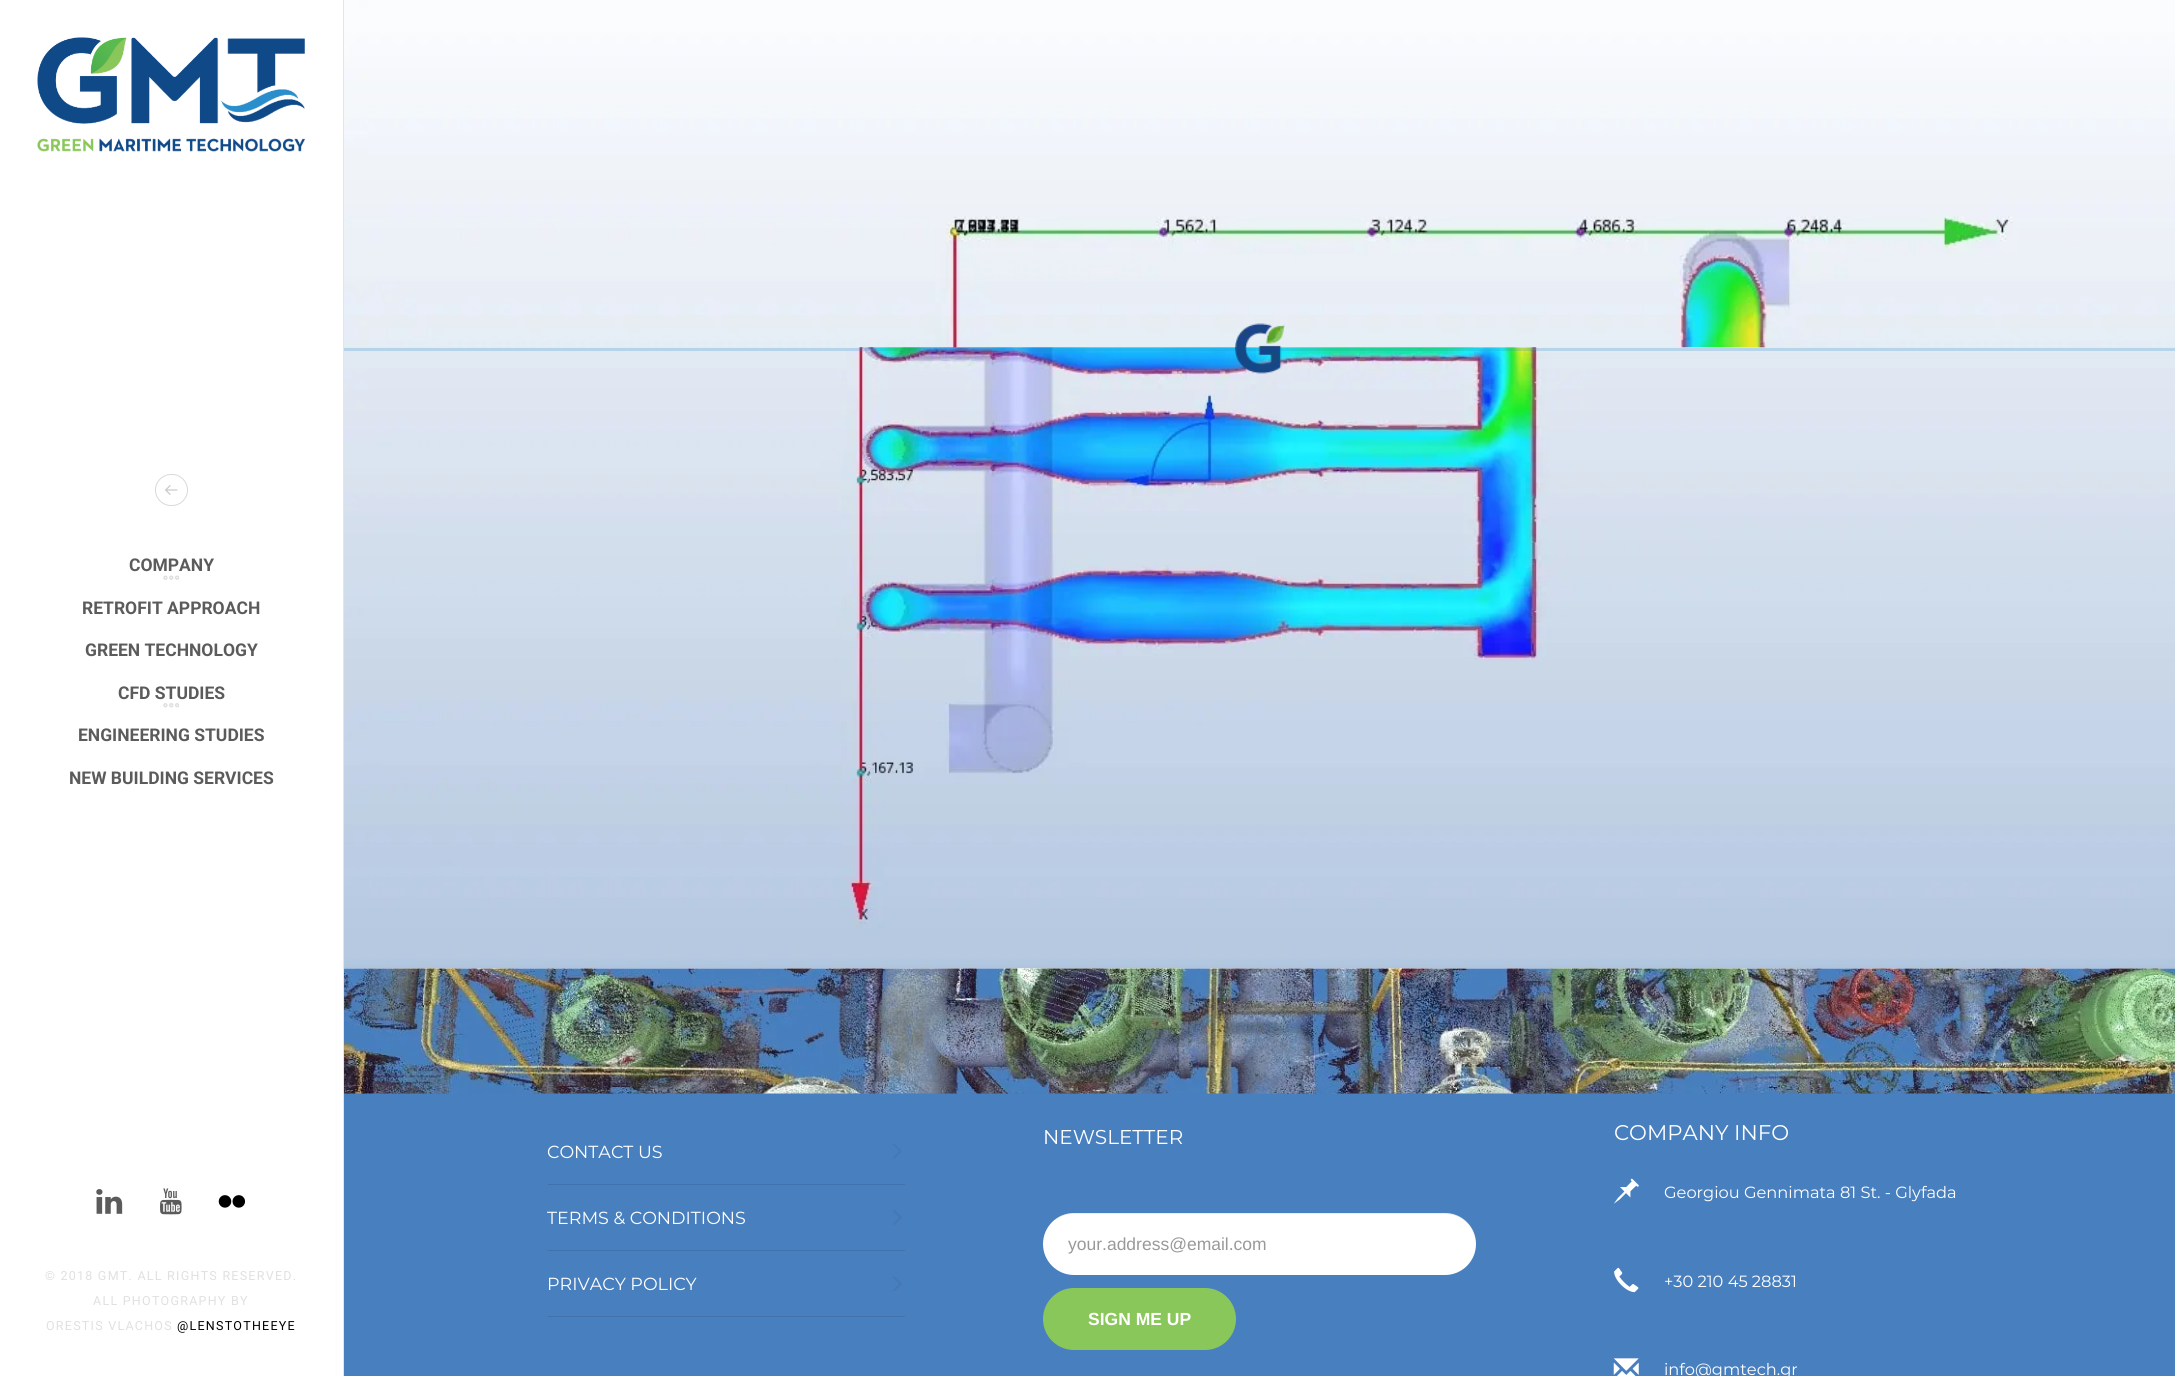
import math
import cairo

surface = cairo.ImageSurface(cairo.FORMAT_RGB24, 2175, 1376)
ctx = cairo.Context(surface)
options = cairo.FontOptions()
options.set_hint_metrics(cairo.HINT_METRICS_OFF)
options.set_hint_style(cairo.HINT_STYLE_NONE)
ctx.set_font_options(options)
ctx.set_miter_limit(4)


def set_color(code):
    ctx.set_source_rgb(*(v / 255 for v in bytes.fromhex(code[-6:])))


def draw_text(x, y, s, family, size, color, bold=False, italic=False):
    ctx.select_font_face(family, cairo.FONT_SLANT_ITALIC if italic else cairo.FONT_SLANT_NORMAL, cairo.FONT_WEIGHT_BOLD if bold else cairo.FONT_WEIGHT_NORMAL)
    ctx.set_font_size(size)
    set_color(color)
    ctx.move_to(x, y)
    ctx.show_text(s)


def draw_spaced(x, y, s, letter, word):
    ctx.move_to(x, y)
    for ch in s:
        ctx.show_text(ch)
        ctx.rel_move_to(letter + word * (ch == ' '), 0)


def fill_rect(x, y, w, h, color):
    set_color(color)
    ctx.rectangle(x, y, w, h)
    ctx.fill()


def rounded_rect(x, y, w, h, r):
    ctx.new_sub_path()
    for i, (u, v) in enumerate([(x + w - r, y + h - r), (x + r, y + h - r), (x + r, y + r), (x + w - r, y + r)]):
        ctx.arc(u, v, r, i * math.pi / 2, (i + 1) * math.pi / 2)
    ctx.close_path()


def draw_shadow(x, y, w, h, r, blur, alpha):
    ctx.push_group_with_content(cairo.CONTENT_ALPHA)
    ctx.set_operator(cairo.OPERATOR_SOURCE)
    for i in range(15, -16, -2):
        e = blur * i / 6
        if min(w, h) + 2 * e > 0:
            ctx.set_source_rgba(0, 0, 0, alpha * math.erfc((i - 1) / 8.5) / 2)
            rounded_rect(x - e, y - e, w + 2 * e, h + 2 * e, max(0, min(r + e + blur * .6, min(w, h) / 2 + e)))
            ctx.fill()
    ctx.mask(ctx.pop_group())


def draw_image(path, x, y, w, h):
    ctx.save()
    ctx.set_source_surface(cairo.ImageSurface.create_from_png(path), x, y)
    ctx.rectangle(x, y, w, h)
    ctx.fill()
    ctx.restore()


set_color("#ffffff")
ctx.paint()
draw_image("assets/img10.png", 344, 347, 1831, 622)
set_color("#000000")
draw_shadow(344, 973, 1831, 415, 0, 4, 0.23)
fill_rect(343, 0, 1, 978, "#e5e5e5")
fill_rect(337, 968, 6, 408, "#ffffff")
draw_image("assets/img1.png", 37, 37, 268, 115)
rounded_rect(155.5, 474.5, 32, 31, 15.5)
set_color("#d9d9d9")
ctx.set_line_width(1)
ctx.stroke()
draw_image("assets/img2.png", 165, 485, 13, 10)
draw_text(129, 571, "COMPANY", "Roboto", 17.5, "#5b5b5b", bold=True)
draw_image("assets/img3.png", 163, 575, 17, 5)
draw_text(82, 614, "RETROFIT APPROACH", "Roboto", 17.5, "#5b5b5b", bold=True)
draw_text(85, 656, "GREEN TECHNOLOGY", "Roboto", 17.5, "#5b5b5b", bold=True)
draw_text(118, 699, "CFD STUDIES", "Roboto", 17.5, "#5b5b5b", bold=True)
draw_image("assets/img4.png", 163, 703, 17, 5)
draw_text(78, 741, "ENGINEERING STUDIES", "Roboto", 17.5, "#5b5b5b", bold=True)
draw_text(69, 784, "NEW BUILDING SERVICES", "Roboto", 17.5, "#5b5b5b", bold=True)
draw_image("assets/img5.png", 96, 1189, 27, 25)
draw_image("assets/img6.png", 160, 1188, 22, 27)
draw_image("assets/img7.png", 218, 1195, 27, 13)
ctx.select_font_face("Roboto")
ctx.set_font_size(12.5)
set_color("#e0e0e0")
draw_spaced(45, 1280, "© 2018 GMT. ALL RIGHTS RESERVED.", 1.25, 0)
draw_spaced(93, 1305, "ALL PHOTOGRAPHY BY", 1.25, 0)
draw_spaced(46, 1330, "ORESTIS VLACHOS", 1.25, 0)
set_color("#000000")
draw_spaced(177, 1330, "@LENSTOTHEEYE", 1.25, 0)
draw_image("assets/img8.png", 344, 0, 1831, 348)
ctx.set_source_rgba(0.165, 0.557, 0.804, 0.24)
ctx.rectangle(344, 348, 1831, 3)
ctx.fill()
draw_image("assets/img9.png", 1235, 323, 50, 51)
fill_rect(344, 1093, 1831, 283, "#487fbf")
draw_image("assets/img11.png", 344, 968, 1831, 126)
fill_rect(548, 1184, 357, 1, "#4172ac")
draw_text(547, 1158, "CONTACT US", "Montserrat", 17.5, "#ffffff")
draw_image("assets/img12.png", 892, 1144, 10, 15)
fill_rect(548, 1250, 357, 1, "#4172ac")
draw_text(547, 1224, "TERMS & CONDITIONS", "Montserrat", 17.5, "#ffffff")
draw_image("assets/img13.png", 892, 1210, 10, 15)
fill_rect(548, 1316, 357, 1, "#4172ac")
draw_text(547, 1290, "PRIVACY POLICY", "Montserrat", 17.5, "#ffffff")
draw_image("assets/img14.png", 892, 1276, 10, 15)
draw_text(1043, 1144, "NEWSLETTER", "Montserrat", 20, "#ffffff")
rounded_rect(1043, 1213, 433, 62, 31)
ctx.fill()
ctx.set_source_rgba(0, 0, 0, 0.07)
ctx.new_path()
ctx.move_to(1074, 1214)
ctx.line_to(1445, 1214)
ctx.curve_to(1462, 1214, 1476, 1228, 1476, 1245)
ctx.line_to(1476, 1244)
ctx.curve_to(1476, 1227, 1462, 1213, 1445, 1213)
ctx.line_to(1074, 1213)
ctx.curve_to(1064, 1213, 1055, 1218, 1050, 1225)
ctx.curve_to(1055, 1218, 1064, 1214, 1074, 1214)
ctx.close_path()
ctx.fill()
draw_text(1068, 1250, "your.address@email.com", "Liberation Sans", 17.5, "#999999")
set_color("#8ac75a")
rounded_rect(1043, 1288, 193, 62, 31)
ctx.fill()
draw_text(1088, 1325, "SIGN ME UP", "Liberation Sans", 17.5, "#ffffff", bold=True)
draw_text(1614, 1140, "COMPANY INFO", "Montserrat", 21.25, "#ffffff")
draw_image("assets/img15.png", 1614, 1178, 25, 26)
draw_text(1664, 1198, "Georgiou Gennimata 81 St. - Glyfada", "Montserrat", 16.25, "#ffffff")
draw_image("assets/img16.png", 1614, 1267, 25, 26)
draw_text(1664, 1287, "+30 210 45 28831", "Montserrat", 16.25, "#ffffff")
draw_image("assets/img17.png", 1613, 1358, 26, 18)
draw_text(1664, 1375, "info@gmtech.gr", "Montserrat", 16.25, "#ffffff")
surface.write_to_png("output.png")
